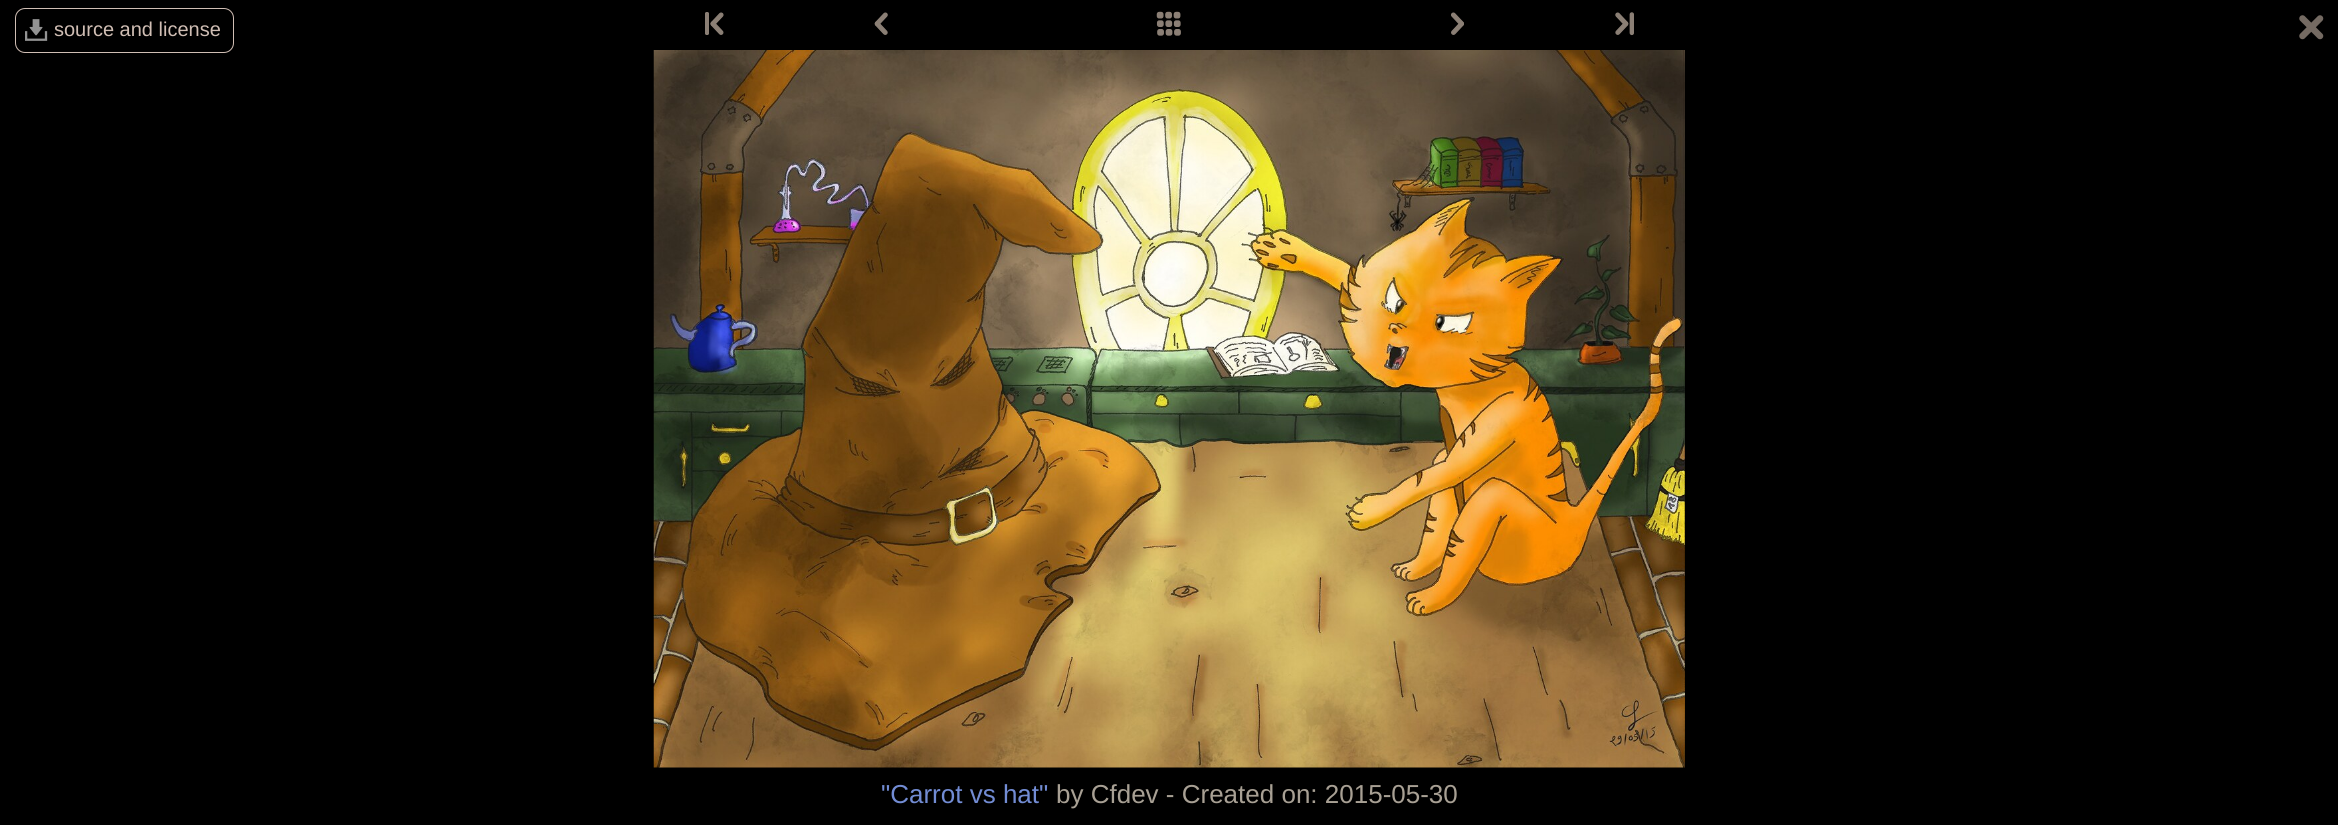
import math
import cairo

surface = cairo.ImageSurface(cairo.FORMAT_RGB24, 2338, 825)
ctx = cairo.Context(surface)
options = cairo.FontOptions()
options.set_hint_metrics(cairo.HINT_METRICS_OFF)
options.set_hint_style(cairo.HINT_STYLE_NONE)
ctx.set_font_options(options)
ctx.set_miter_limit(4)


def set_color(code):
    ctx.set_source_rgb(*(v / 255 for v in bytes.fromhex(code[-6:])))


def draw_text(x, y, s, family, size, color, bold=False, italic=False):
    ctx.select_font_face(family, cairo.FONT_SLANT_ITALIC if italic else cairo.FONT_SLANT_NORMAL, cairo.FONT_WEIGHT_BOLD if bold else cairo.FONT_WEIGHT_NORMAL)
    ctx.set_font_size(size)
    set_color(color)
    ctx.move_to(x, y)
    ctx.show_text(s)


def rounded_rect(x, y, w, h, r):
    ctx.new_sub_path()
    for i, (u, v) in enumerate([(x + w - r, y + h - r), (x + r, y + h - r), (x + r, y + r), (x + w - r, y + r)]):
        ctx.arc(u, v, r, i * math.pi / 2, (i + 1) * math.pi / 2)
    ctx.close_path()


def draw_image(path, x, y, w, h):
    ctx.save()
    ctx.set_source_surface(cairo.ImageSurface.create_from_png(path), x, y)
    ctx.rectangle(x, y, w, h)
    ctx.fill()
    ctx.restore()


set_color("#000000")
ctx.paint()
draw_image("assets/img1.png", 25, 19, 23, 22)
rounded_rect(15.5, 8.5, 218, 44, 9.5)
set_color("#d0beb4")
ctx.set_line_width(1)
ctx.stroke()
draw_text(54, 36, "source and license", "Liberation Sans", 20, "#d0beb4")
draw_image("assets/img2.png", 705, 12, 19, 23)
draw_image("assets/img3.png", 874, 12, 14, 23)
draw_image("assets/img4.png", 1156, 11, 25, 25)
draw_image("assets/img5.png", 1451, 12, 13, 23)
draw_image("assets/img6.png", 1615, 12, 19, 24)
ctx.new_path()
ctx.move_to(2302.5, 18.5)
ctx.line_to(2320, 36)
ctx.move_to(2320, 18.5)
ctx.line_to(2302.5, 36)
set_color("#746a62")
ctx.set_line_width(6.5)
ctx.set_line_cap(cairo.LINE_CAP_ROUND)
ctx.stroke()
draw_image("assets/img7.png", 653, 50, 1032, 718)
draw_text(881, 803, "\"Carrot vs hat\"", "Liberation Sans", 26, "#728cd4")
draw_text(1056, 803, "by Cfdev - Created on: 2015-05-30", "Liberation Sans", 26, "#a8a094")
surface.write_to_png("output.png")
